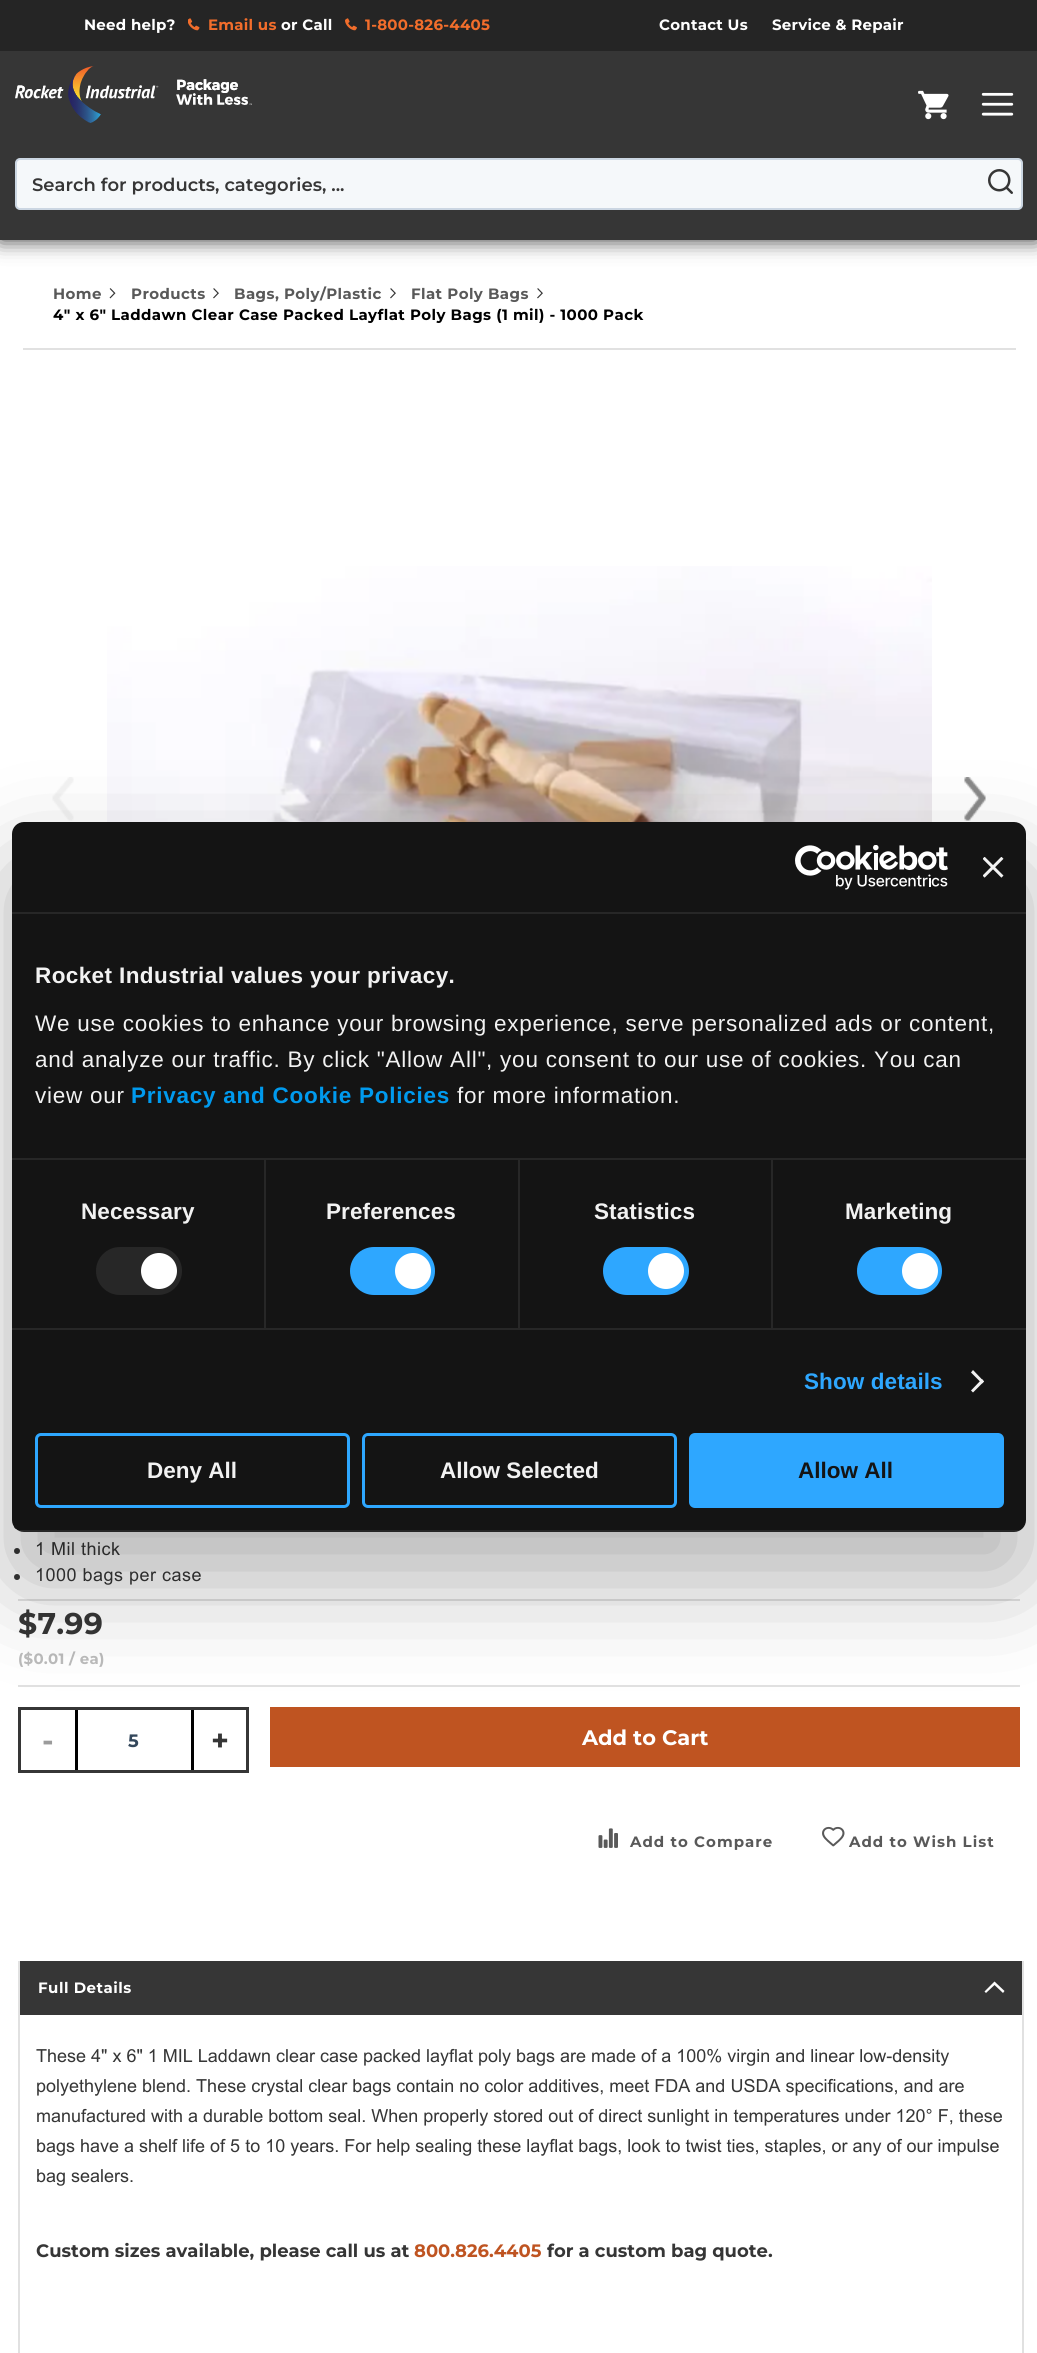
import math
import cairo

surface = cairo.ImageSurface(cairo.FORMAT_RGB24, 1037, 2353)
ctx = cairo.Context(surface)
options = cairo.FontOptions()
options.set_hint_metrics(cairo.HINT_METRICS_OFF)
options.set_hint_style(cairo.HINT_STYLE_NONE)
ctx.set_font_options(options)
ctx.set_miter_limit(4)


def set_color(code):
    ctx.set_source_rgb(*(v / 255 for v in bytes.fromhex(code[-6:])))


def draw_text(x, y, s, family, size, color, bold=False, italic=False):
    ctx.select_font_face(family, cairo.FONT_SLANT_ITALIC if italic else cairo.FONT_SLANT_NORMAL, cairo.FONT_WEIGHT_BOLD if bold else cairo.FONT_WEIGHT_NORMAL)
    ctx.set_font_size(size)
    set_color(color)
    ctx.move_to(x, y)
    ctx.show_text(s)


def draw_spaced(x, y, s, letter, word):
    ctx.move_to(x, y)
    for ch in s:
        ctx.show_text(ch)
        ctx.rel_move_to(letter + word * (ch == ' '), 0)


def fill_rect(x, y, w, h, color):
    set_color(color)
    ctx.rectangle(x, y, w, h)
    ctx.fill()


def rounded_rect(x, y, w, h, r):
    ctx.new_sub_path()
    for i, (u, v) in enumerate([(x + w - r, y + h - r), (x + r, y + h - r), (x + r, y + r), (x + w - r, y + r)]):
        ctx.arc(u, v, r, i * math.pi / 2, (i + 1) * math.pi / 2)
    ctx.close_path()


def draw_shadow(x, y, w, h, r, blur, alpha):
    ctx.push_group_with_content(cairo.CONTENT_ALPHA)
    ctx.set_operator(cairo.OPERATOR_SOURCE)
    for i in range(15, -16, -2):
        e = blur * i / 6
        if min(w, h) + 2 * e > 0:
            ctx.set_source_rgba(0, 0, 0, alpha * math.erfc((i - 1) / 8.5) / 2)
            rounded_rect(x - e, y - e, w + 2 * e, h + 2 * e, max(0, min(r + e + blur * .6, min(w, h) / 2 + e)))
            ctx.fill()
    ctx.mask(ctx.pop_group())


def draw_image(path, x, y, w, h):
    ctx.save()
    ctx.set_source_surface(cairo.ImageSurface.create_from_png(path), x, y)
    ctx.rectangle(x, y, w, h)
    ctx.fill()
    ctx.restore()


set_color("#ffffff")
ctx.paint()
set_color("#000000")
draw_shadow(0, 0, 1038, 240, 0, 10.5, 0.8)
fill_rect(0, 0, 1037, 51, "#252525")
ctx.select_font_face("Montserrat Thin")
ctx.set_font_size(15)
set_color("#ffffff")
draw_spaced(84, 30, "Need help?", 0.25, 0)
draw_image("assets/img1.png", 188, 18, 12, 13)
set_color("#f26d2b")
draw_spaced(208, 30, "Email us", 0.25, 0)
set_color("#ffffff")
draw_spaced(281, 30, "or Call", 0.25, 0)
draw_image("assets/img2.png", 345, 18, 12, 13)
set_color("#f26d2b")
draw_spaced(365, 30, "1-800-826-4405", 0.25, 0)
set_color("#ffffff")
draw_spaced(659, 30, "Contact Us", 0.25, 0)
draw_spaced(772, 30, "Service & Repair", 0.25, 0)
fill_rect(0, 51, 1037, 189, "#363636")
draw_image("assets/img3.png", 15, 66, 237, 57)
draw_image("assets/img4.png", 918, 90, 31, 30)
draw_image("assets/img5.png", 981, 92, 33, 24)
set_color("#f5f8fa")
rounded_rect(16, 159, 1006, 50, 4)
ctx.fill_preserve()
set_color("#cbd6e2")
ctx.stroke()
draw_text(32, 191, "Search for products, categories, ...", "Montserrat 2 Thin", 18, "#363636")
draw_image("assets/img6.png", 988, 169, 25, 25)
fill_rect(23, 348, 993, 2, "#e1e1e1")
ctx.select_font_face("Montserrat Thin")
ctx.set_font_size(15)
set_color("#595959")
draw_spaced(53, 299, "Home", 0.42, 0)
draw_image("assets/img7.png", 109, 288, 7, 11)
draw_spaced(131, 299, "Products", 0.42, 0)
draw_image("assets/img8.png", 213, 288, 6, 11)
draw_spaced(234, 299, "Bags, Poly/Plastic", 0.42, 0)
draw_image("assets/img8.png", 390, 288, 6, 11)
draw_spaced(411, 299, "Flat Poly Bags", 0.42, 0)
draw_image("assets/img8.png", 537, 288, 6, 11)
set_color("#000000")
draw_spaced(53, 320, "4\" x 6\" Laddawn Clear Case Packed Layflat Poly Bags (1 mil) - 1000 Pack", 0.42, 0)
draw_image("assets/img9.png", 52, 777, 22, 44)
draw_image("assets/img10.png", 107, 566, 825, 256)
draw_image("assets/img11.png", 964, 777, 22, 44)
set_color("#363636")
ctx.arc(17, 1526, 3, 0, 2 * math.pi)
ctx.fill()
ctx.arc(17, 1551, 3, 0, 2 * math.pi)
ctx.fill()
ctx.select_font_face("Arial")
ctx.set_font_size(18)
draw_spaced(35, 1555, "1 Mil thick", 0.5, 0)
ctx.new_path()
ctx.arc(17, 1577, 3, 0, 2 * math.pi)
ctx.fill()
draw_spaced(35, 1581, "1000 bags per case", 0.5, 0)
fill_rect(18, 1599, 1002, 2, "#e1e1e1")
fill_rect(18, 1685, 1002, 2, "#e1e1e1")
ctx.select_font_face("Montserrat Thin")
ctx.set_font_size(30)
set_color("#363636")
draw_spaced(18, 1634, "$7.99", 0.25, 0)
ctx.set_font_size(15)
set_color("#bbbbbb")
draw_spaced(18, 1664, "($0.01 / ea)", 0.25, 0)
ctx.rectangle(19.5, 1708.5, 228, 63)
set_color("#363636")
ctx.set_line_width(3)
ctx.stroke()
draw_text(42, 1751, "-", "Montserrat Thin", 30, "#9b9b9b")
fill_rect(191, 1710, 3, 60, "#000000")
fill_rect(75, 1710, 3, 60, "#000000")
draw_text(128, 1747, "5", "Montserrat Thin", 18, "#33475b")
draw_text(211, 1751, "+", "Montserrat Thin", 30, "#363636")
fill_rect(270, 1707, 750, 60, "#bf5421")
draw_text(582, 1745, "Add to Cart", "Montserrat Thin", 21, "#ffffff")
draw_image("assets/img12.png", 598, 1828, 20, 20)
ctx.set_font_size(15)
set_color("#595959")
draw_spaced(630, 1847, "Add to Compare", 1, 0)
draw_image("assets/img13.png", 822, 1826, 23, 21)
draw_spaced(849, 1847, "Add to Wish List", 1, 0)
fill_rect(1022, 1961, 2, 392, "#e1e1e1")
fill_rect(18, 1961, 2, 392, "#e1e1e1")
fill_rect(20, 1961, 1002, 54, "#363636")
set_color("#ffffff")
draw_spaced(38, 1993, "Full Details", 0.5, 0)
ctx.new_path()
ctx.move_to(994.5, 1985)
ctx.line_to(1003, 1993)
ctx.line_to(1004.5, 1991)
ctx.line_to(994.5, 1981.5)
ctx.line_to(984.5, 1991.5)
ctx.line_to(986, 1993)
ctx.close_path()
ctx.fill()
draw_text(36, 2062, "These 4\" x 6\" 1 MIL Laddawn clear case packed layflat poly bags are made of a 100% virgin and linear low-density", "Arial", 18, "#363636")
draw_text(36, 2092, "polyethylene blend. These crystal clear bags contain no color additives, meet FDA and USDA specifications, and are", "Arial", 18, "#363636")
draw_text(36, 2122, "manufactured with a durable bottom seal. When properly stored out of direct sunlight in temperatures under 120° F, these", "Arial", 18, "#363636")
draw_text(36, 2152, "bags have a shelf life of 5 to 10 years. For help sealing these layflat bags, look to twist ties, staples, or any of our impulse", "Arial", 18, "#363636")
draw_text(36, 2182, "bag sealers.", "Arial", 18, "#363636")
draw_text(36, 2257, "Custom sizes available, please call us at", "Montserrat Thin", 18, "#363636")
draw_text(414, 2257, "800.826.4405", "Montserrat Thin", 18, "#bf5421")
draw_text(547, 2257, "for a custom bag quote.", "Montserrat Thin", 18, "#363636")
set_color("#000000")
draw_shadow(12, 870, 1014, 710, 12, 51, 0.3)
set_color("#141414")
rounded_rect(12, 822, 1014, 710, 12)
ctx.fill()
fill_rect(12, 912, 1014, 2, "#272727")
draw_image("assets/img14.png", 795, 845, 153, 45)
draw_image("assets/img15.png", 983, 857, 21, 21)
fill_rect(12, 1158, 1014, 2, "#272727")
ctx.select_font_face("Liberation Sans", cairo.FONT_SLANT_NORMAL, cairo.FONT_WEIGHT_BOLD)
ctx.set_font_size(22.5)
set_color("#f2f2f2")
draw_spaced(35, 983, "Rocket Industrial values your privacy.", 0.4, 0)
ctx.select_font_face("Liberation Sans")
draw_spaced(35, 1031, "We use cookies to enhance your browsing experience, serve personalized ads or content,", 0.75, 0)
draw_spaced(35, 1067, "and analyze our traffic. By click \"Allow All\", you consent to our use of cookies. You can", 0.75, 0)
draw_spaced(35, 1103, "view our", 0.75, 0)
ctx.select_font_face("Liberation Sans", cairo.FONT_SLANT_NORMAL, cairo.FONT_WEIGHT_BOLD)
set_color("#009aee")
draw_spaced(131, 1103, "Privacy and Cookie Policies", 0.75, 0)
ctx.select_font_face("Liberation Sans")
set_color("#f2f2f2")
draw_spaced(457, 1103, "for more information.", 0.75, 0)
fill_rect(12, 1328, 1014, 2, "#272727")
fill_rect(264, 1160, 2, 168, "#272727")
ctx.select_font_face("Liberation Sans", cairo.FONT_SLANT_NORMAL, cairo.FONT_WEIGHT_BOLD)
set_color("#f2f2f2")
draw_spaced(81, 1219, "Necessary", 0.1, 0)
set_color("#272727")
rounded_rect(96, 1247, 86, 48, 24)
ctx.fill()
set_color("#ffffff")
ctx.arc(159, 1271, 18, 0, 2 * math.pi)
ctx.fill()
fill_rect(518, 1160, 2, 168, "#272727")
set_color("#f2f2f2")
draw_spaced(326, 1219, "Preferences", 0.1, 0)
set_color("#2ea7ff")
rounded_rect(350, 1247, 85, 48, 24)
ctx.fill()
set_color("#ffffff")
ctx.arc(413, 1271, 18, 0, 2 * math.pi)
ctx.fill()
fill_rect(771, 1160, 2, 168, "#272727")
set_color("#f2f2f2")
draw_spaced(594, 1219, "Statistics", 0.1, 0)
set_color("#2ea7ff")
rounded_rect(603, 1247, 86, 48, 24)
ctx.fill()
set_color("#ffffff")
ctx.arc(666, 1271, 18, 0, 2 * math.pi)
ctx.fill()
set_color("#f2f2f2")
draw_spaced(845, 1219, "Marketing", 0.1, 0)
set_color("#2ea7ff")
rounded_rect(857, 1247, 85, 48, 24)
ctx.fill()
set_color("#ffffff")
ctx.arc(920, 1271, 18, 0, 2 * math.pi)
ctx.fill()
set_color("#2ea7ff")
draw_spaced(804, 1389, "Show details", 0.1, 0)
set_color("#f2f2f2")
ctx.new_path()
ctx.move_to(973, 1370)
ctx.line_to(984, 1381.5)
ctx.line_to(982, 1383.5)
ctx.line_to(971, 1372.5)
ctx.close_path()
ctx.fill()
ctx.new_path()
ctx.move_to(982, 1379)
ctx.line_to(984, 1381.5)
ctx.line_to(973, 1392.5)
ctx.line_to(971, 1390.5)
ctx.close_path()
ctx.fill()
ctx.save()
rounded_rect(12, 822, 1014, 710, 12)
ctx.clip()
ctx.set_source_rgba(1, 1, 1, 0.08)
ctx.rectangle(12, 1530, 1014, 2)
ctx.fill()
ctx.restore()
rounded_rect(36.5, 1434.5, 312, 72, 4.5)
set_color("#2ea7ff")
ctx.stroke()
draw_text(147, 1478, "Deny All", "Liberation Sans", 22.5, "#f2f2f2", bold=True)
rounded_rect(363.5, 1434.5, 312, 72, 4.5)
set_color("#2ea7ff")
ctx.stroke()
draw_text(440, 1478, "Allow Selected", "Liberation Sans", 22.5, "#f2f2f2", bold=True)
set_color("#2ea7ff")
rounded_rect(690.5, 1434.5, 312, 72, 4.5)
ctx.fill_preserve()
ctx.stroke()
draw_text(798, 1478, "Allow All", "Liberation Sans", 22.5, "#141414", bold=True)
surface.write_to_png("output.png")
